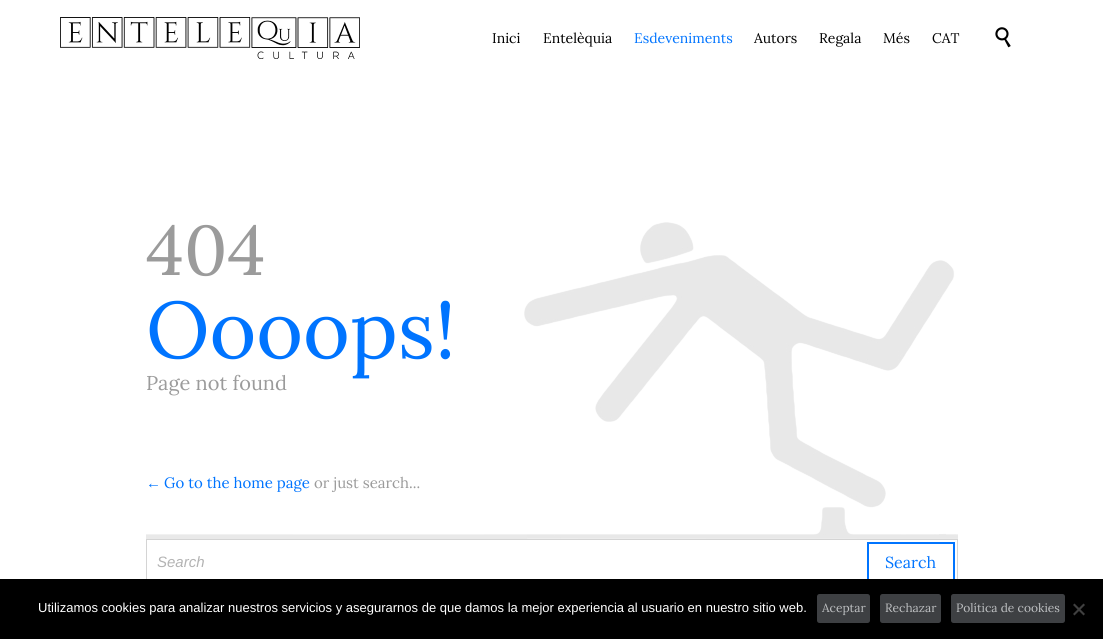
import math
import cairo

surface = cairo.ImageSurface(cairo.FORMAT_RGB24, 1103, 639)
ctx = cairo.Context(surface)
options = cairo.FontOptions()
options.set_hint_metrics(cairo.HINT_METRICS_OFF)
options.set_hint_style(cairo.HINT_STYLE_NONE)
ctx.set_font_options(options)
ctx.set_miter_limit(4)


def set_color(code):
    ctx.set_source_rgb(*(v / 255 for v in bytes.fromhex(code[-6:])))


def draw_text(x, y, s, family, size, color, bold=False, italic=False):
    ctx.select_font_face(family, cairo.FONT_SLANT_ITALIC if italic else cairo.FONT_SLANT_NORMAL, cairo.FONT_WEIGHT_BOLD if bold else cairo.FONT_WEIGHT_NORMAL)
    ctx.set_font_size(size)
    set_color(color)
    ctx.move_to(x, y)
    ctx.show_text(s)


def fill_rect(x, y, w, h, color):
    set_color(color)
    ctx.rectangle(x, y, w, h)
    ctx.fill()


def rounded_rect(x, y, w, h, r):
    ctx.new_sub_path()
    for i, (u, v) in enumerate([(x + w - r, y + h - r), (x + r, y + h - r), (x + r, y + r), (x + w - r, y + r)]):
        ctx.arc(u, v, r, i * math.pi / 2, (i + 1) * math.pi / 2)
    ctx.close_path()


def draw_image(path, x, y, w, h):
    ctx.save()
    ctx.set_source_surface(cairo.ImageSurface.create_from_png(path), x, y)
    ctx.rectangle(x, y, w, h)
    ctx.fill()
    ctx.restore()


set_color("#ffffff")
ctx.paint()
draw_image("assets/img1.png", 60, 17, 300, 42)
draw_text(492, 43, "Inici", "Lora", 14, "#000000")
draw_text(543, 43, "Entelèquia", "Lora", 14, "#000000")
draw_text(634, 43, "Esdeveniments", "Lora", 14, "#0074ff")
draw_text(754, 43, "Autors", "Lora", 14, "#000000")
draw_text(819, 43, "Regala", "Lora", 14, "#000000")
draw_text(883, 43, "Més", "Lora", 14, "#000000")
draw_text(932, 43, "CAT", "Lora", 14, "#000000")
draw_image("assets/img2.png", 995, 27, 16, 21)
draw_image("assets/img3.png", 146, 222, 812, 317)
draw_text(146, 275, "404", "Lora", 70, "#9b9b9b")
draw_text(146, 358, "Oooops!", "Lora", 80, "#0074ff")
draw_text(146, 390, "Page not found", "Lora", 20, "#9b9b9b")
draw_text(146, 488, "←", "Liberation Serif", 15, "#0074ff")
draw_text(164, 488, "Go to the home page", "Lora", 15, "#0074ff")
draw_text(314, 488, "or just search...", "Lora", 15, "#9b9b9b")
ctx.rectangle(146.5, 539.5, 811, 44)
set_color("#d4d4d4")
ctx.set_line_width(1)
ctx.stroke()
draw_text(157, 567, "Search", "Liberation Sans", 15, "#b3b3b3", italic=True)
ctx.rectangle(868, 543, 86, 38)
set_color("#0074ff")
ctx.set_line_width(2)
ctx.stroke()
draw_text(885, 568, "Search", "Lora", 16, "#0074ff")
fill_rect(0, 579, 1103, 60, "#000000")
draw_text(38, 612, "Utilizamos cookies para analizar nuestros servicios y asegurarnos de que damos la mejor experiencia al usuario en nuestro sitio web.", "Liberation Sans", 13, "#ffffff")
set_color("#3e4043")
rounded_rect(817, 594, 53, 29, 2.5)
ctx.fill()
draw_text(822, 612, "Aceptar", "Lora", 12, "#bec0c2")
set_color("#3e4043")
rounded_rect(880, 594, 61, 29, 2.5)
ctx.fill()
draw_text(885, 612, "Rechazar", "Lora", 12, "#bec0c2")
set_color("#3e4043")
rounded_rect(951, 594, 114, 29, 2.5)
ctx.fill()
draw_text(956, 612, "Política de cookies", "Lora", 12, "#bec0c2")
set_color("#404040")
ctx.new_path()
ctx.move_to(1083.5, 603.5)
ctx.line_to(1085, 605)
ctx.line_to(1074.5, 615.5)
ctx.line_to(1073, 614)
ctx.close_path()
ctx.fill()
ctx.new_path()
ctx.move_to(1073, 605)
ctx.line_to(1074.5, 603.5)
ctx.line_to(1085, 614)
ctx.line_to(1083.5, 615.5)
ctx.close_path()
ctx.fill()
surface.write_to_png("output.png")
